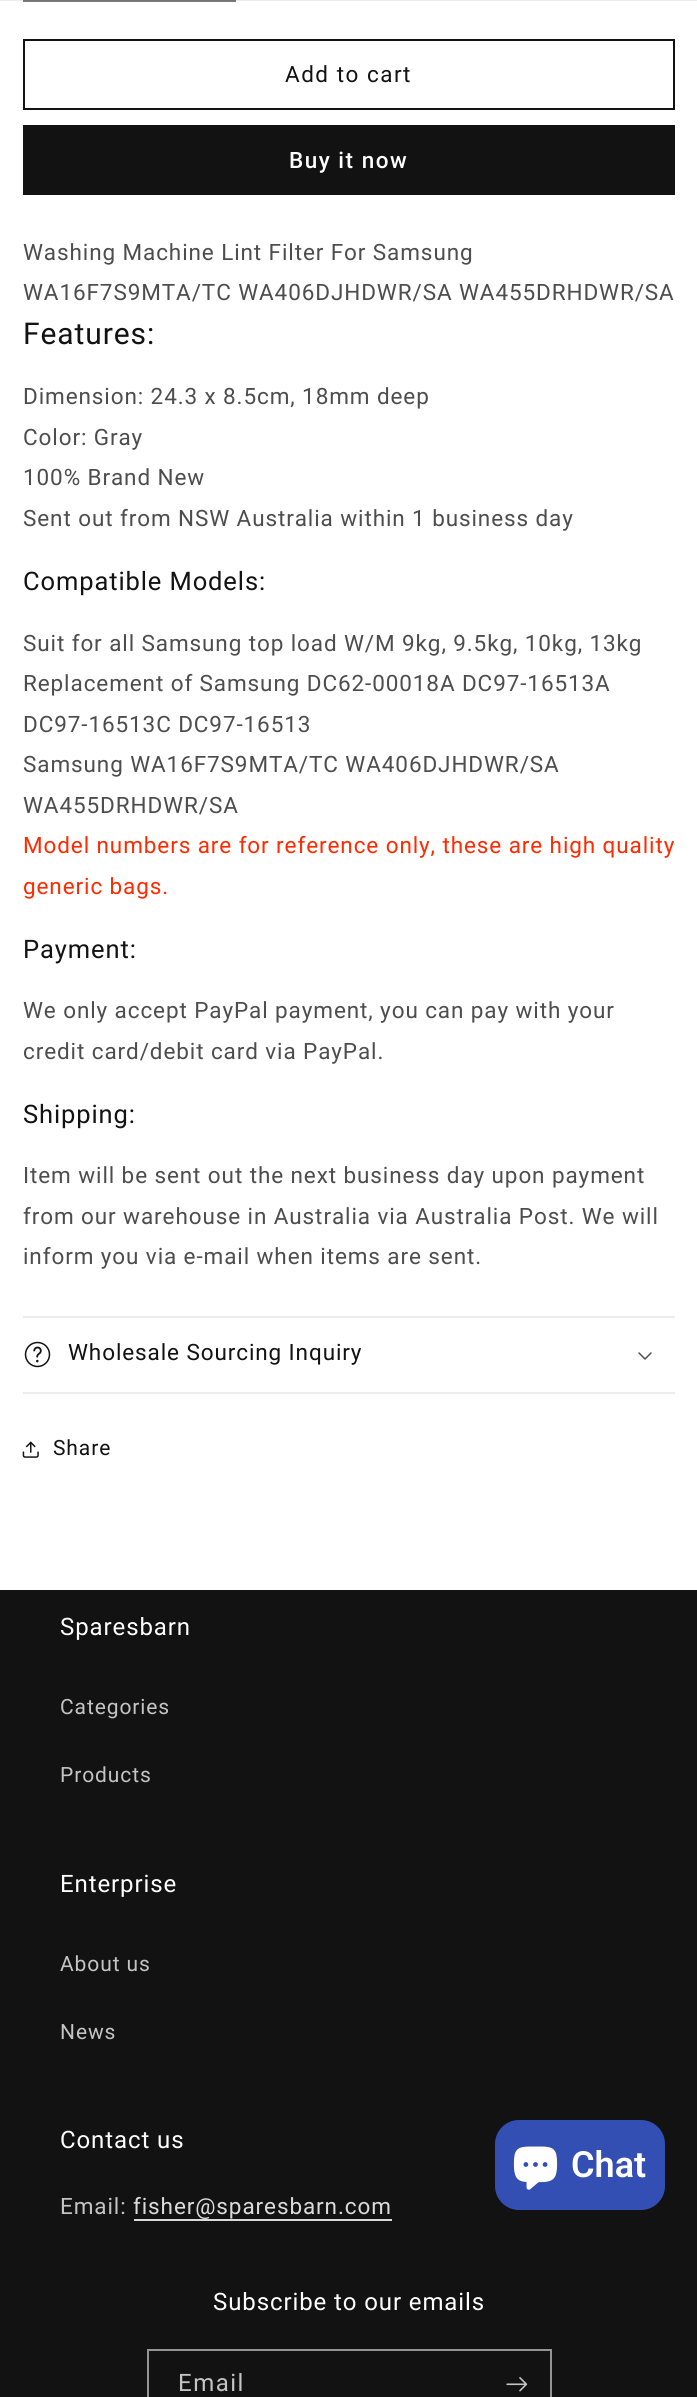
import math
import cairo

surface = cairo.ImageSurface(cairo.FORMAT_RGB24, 697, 2397)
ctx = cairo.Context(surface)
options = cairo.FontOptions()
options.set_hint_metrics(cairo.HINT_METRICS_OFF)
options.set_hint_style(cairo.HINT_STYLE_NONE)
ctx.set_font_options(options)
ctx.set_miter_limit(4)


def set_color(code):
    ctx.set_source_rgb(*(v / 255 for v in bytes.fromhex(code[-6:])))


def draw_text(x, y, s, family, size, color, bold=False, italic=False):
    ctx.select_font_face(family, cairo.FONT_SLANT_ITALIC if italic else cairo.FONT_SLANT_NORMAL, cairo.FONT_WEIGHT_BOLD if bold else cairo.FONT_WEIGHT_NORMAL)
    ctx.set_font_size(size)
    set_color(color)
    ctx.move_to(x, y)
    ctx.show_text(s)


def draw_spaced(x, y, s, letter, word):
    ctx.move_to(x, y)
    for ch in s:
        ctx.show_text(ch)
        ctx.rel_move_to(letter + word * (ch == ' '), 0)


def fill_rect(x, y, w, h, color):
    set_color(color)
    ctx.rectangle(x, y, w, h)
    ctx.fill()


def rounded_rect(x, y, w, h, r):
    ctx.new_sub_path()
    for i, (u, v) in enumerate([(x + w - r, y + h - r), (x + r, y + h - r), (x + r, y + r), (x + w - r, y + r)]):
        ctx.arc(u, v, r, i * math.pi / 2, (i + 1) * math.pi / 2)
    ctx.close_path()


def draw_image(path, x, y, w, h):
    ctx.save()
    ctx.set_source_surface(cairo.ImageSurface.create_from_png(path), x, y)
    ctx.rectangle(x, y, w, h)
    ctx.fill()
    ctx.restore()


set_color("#ffffff")
ctx.paint()
ctx.rectangle(24, -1, 211, 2)
set_color("#7d7d7d")
ctx.stroke()
ctx.set_source_rgba(0.071, 0.071, 0.071, 0.08)
ctx.rectangle(0, 0, 697, 1)
ctx.fill()
ctx.rectangle(24, 40, 650, 69)
set_color("#121212")
ctx.stroke()
ctx.select_font_face("Roboto")
ctx.set_font_size(22.5)
draw_spaced(285, 82, "Add to cart", 1.5, 0)
fill_rect(23, 125, 652, 70, "#121212")
ctx.select_font_face("Roboto Medium")
set_color("#ffffff")
draw_spaced(289, 168, "Buy it now", 1.5, 0)
ctx.select_font_face("Roboto")
set_color("#4d4d4d")
draw_spaced(23, 260, "Washing Machine Lint Filter For Samsung", 0.9, 0)
draw_spaced(23, 300, "WA16F7S9MTA/TC WA406DJHDWR/SA WA455DRHDWR/SA", 0.9, 0)
ctx.set_font_size(30)
set_color("#121212")
draw_spaced(23, 344, "Features:", 0.9, 0)
ctx.set_font_size(22.5)
set_color("#4d4d4d")
draw_spaced(23, 404, "Dimension: 24.3 x 8.5cm, 18mm deep", 0.9, 0)
draw_spaced(23, 445, "Color: Gray", 0.9, 0)
draw_spaced(23, 485, "100% Brand New", 0.9, 0)
draw_spaced(23, 526, "Sent out from NSW Australia within 1 business day", 0.9, 0)
ctx.set_font_size(25.5)
set_color("#121212")
draw_spaced(23, 590, "Compatible Models:", 0.9, 0)
ctx.set_font_size(22.5)
set_color("#4d4d4d")
draw_spaced(23, 651, "Suit for all Samsung top load W/M 9kg, 9.5kg, 10kg, 13kg", 0.9, 0)
draw_spaced(23, 691, "Replacement of Samsung DC62-00018A DC97-16513A", 0.9, 0)
draw_spaced(23, 732, "DC97-16513C DC97-16513", 0.9, 0)
draw_spaced(23, 772, "Samsung WA16F7S9MTA/TC WA406DJHDWR/SA", 0.9, 0)
draw_spaced(23, 813, "WA455DRHDWR/SA", 0.9, 0)
set_color("#ff2a00")
draw_spaced(23, 853, "Model numbers are for reference only, these are high quality", 0.9, 0)
draw_spaced(23, 894, "generic bags.", 0.9, 0)
ctx.set_font_size(25.5)
set_color("#121212")
draw_spaced(23, 958, "Payment:", 0.9, 0)
ctx.set_font_size(22.5)
set_color("#4d4d4d")
draw_spaced(23, 1018, "We only accept PayPal payment, you can pay with your", 0.9, 0)
draw_spaced(23, 1059, "credit card/debit card via PayPal.", 0.9, 0)
ctx.set_font_size(25.5)
set_color("#121212")
draw_spaced(23, 1123, "Shipping:", 0.9, 0)
ctx.set_font_size(22.5)
set_color("#4d4d4d")
draw_spaced(23, 1183, "Item will be sent out the next business day upon payment", 0.9, 0)
draw_spaced(23, 1224, "from our warehouse in Australia via Australia Post. We will", 0.9, 0)
draw_spaced(23, 1264, "inform you via e-mail when items are sent.", 0.9, 0)
fill_rect(23, 1316, 652, 2, "#ececec")
fill_rect(23, 1392, 652, 2, "#ececec")
draw_image("assets/img1.png", 24, 1341, 27, 27)
set_color("#121212")
draw_spaced(68, 1360, "Wholesale Sourcing Inquiry", 0.9, 0)
draw_image("assets/img2.png", 638, 1352, 14, 8)
draw_image("assets/img3.png", 22, 1441, 17, 17)
ctx.set_font_size(21)
draw_spaced(53, 1455, "Share", 0.9, 0)
fill_rect(0, 1590, 697, 807, "#121212")
ctx.set_font_size(24)
set_color("#ffffff")
draw_spaced(60, 1635, "Sparesbarn", 0.9, 0)
ctx.set_font_size(21)
set_color("#c4c4c4")
draw_spaced(60, 1714, "Categories", 0.9, 0)
draw_spaced(60, 1782, "Products", 0.9, 0)
ctx.set_font_size(24)
set_color("#ffffff")
draw_spaced(60, 1892, "Enterprise", 0.9, 0)
ctx.set_font_size(21)
set_color("#c4c4c4")
draw_spaced(60, 1971, "About us", 0.9, 0)
draw_spaced(60, 2039, "News", 0.9, 0)
ctx.set_font_size(24)
set_color("#ffffff")
draw_spaced(60, 2148, "Contact us", 0.9, 0)
ctx.set_font_size(22.5)
set_color("#c4c4c4")
draw_spaced(60, 2214, "Email:", 0.9, 0)
set_color("#dbdbdb")
draw_spaced(133, 2214, "fisher@sparesbarn.com", 0.9, 0)
fill_rect(134, 2219, 258, 2, "#dbdbdb")
ctx.set_font_size(24)
set_color("#ffffff")
draw_spaced(213, 2310, "Subscribe to our emails", 0.9, 0)
ctx.rectangle(148, 2350, 403, 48)
set_color("#949494")
ctx.stroke()
set_color("#c4c4c4")
draw_spaced(178, 2391, "Email", 1.5, 0)
draw_image("assets/img4.png", 506, 2377, 22, 15)
set_color("#334fb4")
rounded_rect(495, 2120, 170, 90, 24)
ctx.fill()
draw_image("assets/img5.png", 513, 2146, 45, 44)
draw_text(571, 2177, "Chat", "Roboto SemiBold", 36, "#ffffff")
surface.write_to_png("output.png")
